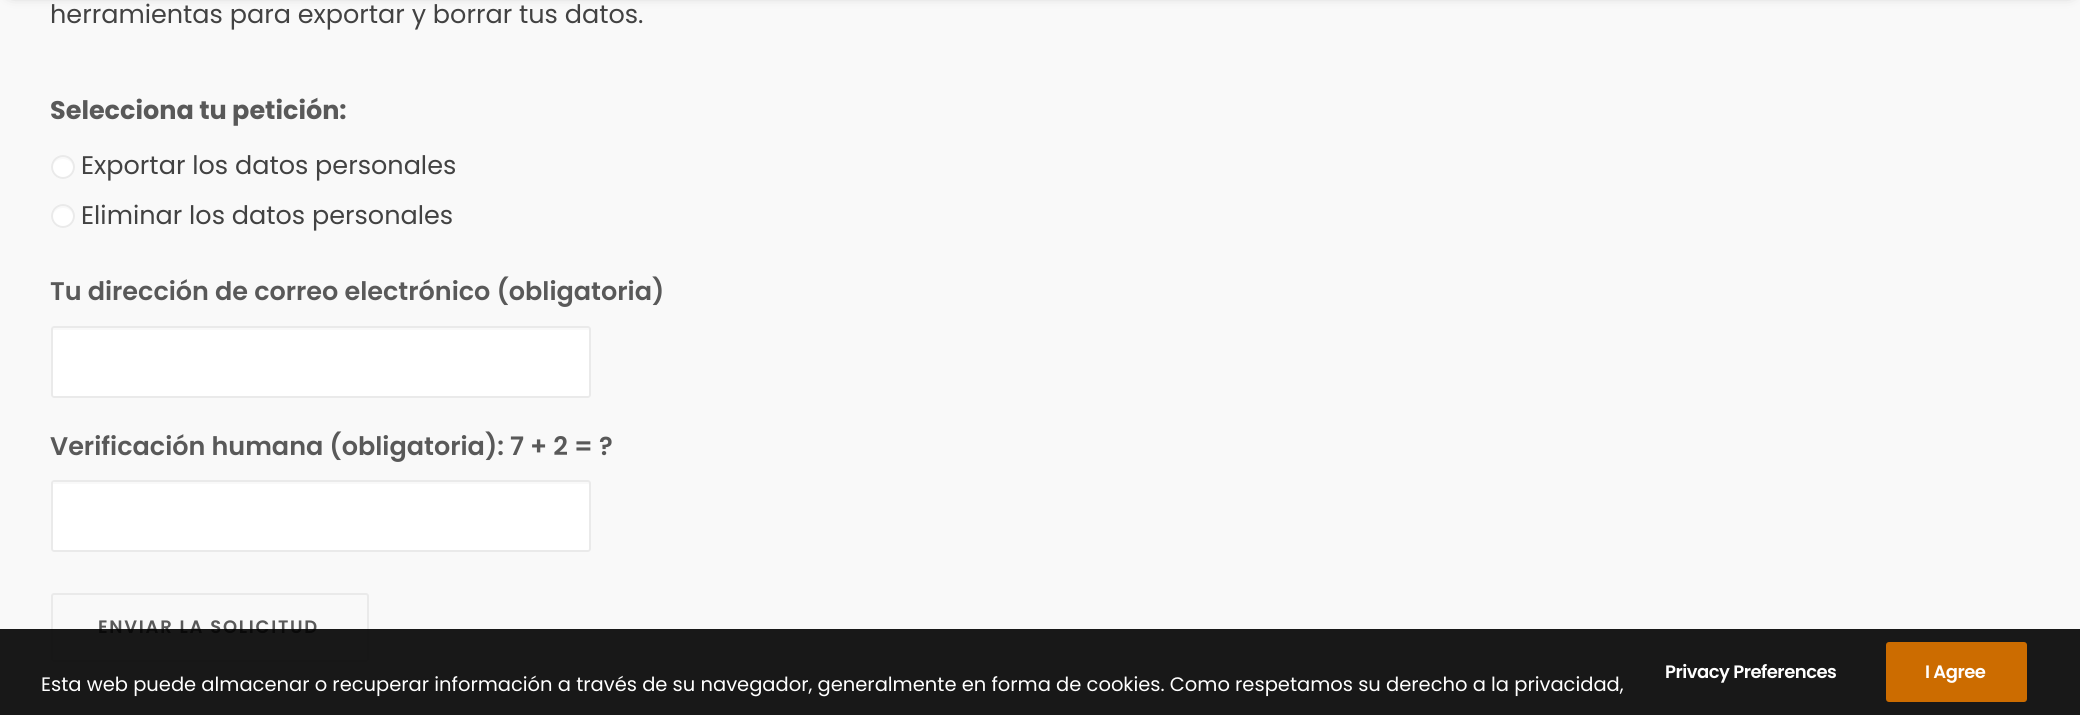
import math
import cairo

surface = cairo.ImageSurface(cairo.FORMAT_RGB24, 2080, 715)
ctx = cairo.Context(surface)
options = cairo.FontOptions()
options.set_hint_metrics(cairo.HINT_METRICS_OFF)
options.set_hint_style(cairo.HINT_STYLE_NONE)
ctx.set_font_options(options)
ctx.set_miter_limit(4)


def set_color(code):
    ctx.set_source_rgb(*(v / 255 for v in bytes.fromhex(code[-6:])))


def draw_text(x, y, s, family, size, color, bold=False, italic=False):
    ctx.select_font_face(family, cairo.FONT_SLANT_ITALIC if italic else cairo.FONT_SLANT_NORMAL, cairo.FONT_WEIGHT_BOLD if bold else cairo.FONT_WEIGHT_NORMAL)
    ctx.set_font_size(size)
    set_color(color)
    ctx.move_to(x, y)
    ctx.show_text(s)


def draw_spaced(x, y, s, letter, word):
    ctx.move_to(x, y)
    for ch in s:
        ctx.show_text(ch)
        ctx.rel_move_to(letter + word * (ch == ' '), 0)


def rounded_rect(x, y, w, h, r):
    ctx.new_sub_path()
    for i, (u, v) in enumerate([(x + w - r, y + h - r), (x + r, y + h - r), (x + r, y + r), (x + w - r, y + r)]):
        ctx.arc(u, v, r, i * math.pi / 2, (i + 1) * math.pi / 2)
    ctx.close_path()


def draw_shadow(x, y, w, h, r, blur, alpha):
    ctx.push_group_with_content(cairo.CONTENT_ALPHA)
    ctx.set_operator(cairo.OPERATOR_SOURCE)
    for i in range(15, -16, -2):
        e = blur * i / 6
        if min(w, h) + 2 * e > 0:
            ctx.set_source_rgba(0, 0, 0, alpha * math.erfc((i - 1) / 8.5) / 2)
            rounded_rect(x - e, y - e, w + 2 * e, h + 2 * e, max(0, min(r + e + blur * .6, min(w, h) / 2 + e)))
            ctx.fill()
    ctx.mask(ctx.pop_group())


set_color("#f9f9f9")
ctx.paint()
set_color("#000000")
draw_shadow(12, -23, 2058, 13, 0, 7.5, 0.6)
draw_text(50, 23, "herramientas para exportar y borrar tus datos.", "Poppins", 25.5, "#424242")
draw_text(50, 119, "Selecciona tu petición:", "Poppins", 25.5, "#595959", bold=True)
set_color("#ffffff")
ctx.new_path()
ctx.arc(63, 167, 12, 0, 2 * math.pi)
ctx.fill()
set_color("#f9f9f9")
ctx.new_path()
ctx.move_to(63, 159)
ctx.curve_to(70, 159, 73.5, 164.5, 73.5, 169.5)
ctx.curve_to(76.5, 159.5, 64, 151.5, 56, 159)
ctx.curve_to(54.5, 161, 53, 163.5, 53, 166)
ctx.curve_to(54, 162, 57.5, 159, 63, 159)
ctx.close_path()
ctx.fill()
ctx.arc(63, 167, 11, 0, 2 * math.pi)
set_color("#eaeaea")
ctx.stroke()
draw_text(81, 174, "Exportar los datos personales", "Poppins", 25.5, "#424242")
set_color("#ffffff")
ctx.new_path()
ctx.arc(63, 216, 12, 0, 2 * math.pi)
ctx.fill()
set_color("#f9f9f9")
ctx.new_path()
ctx.move_to(63, 208)
ctx.curve_to(70.5, 208, 74, 214, 73.5, 220)
ctx.curve_to(76.5, 210, 64.5, 201.5, 56.5, 208.5)
ctx.curve_to(54.5, 210.5, 53.5, 212.5, 53, 215)
ctx.curve_to(54.5, 211, 57.5, 208, 63, 208)
ctx.close_path()
ctx.fill()
ctx.arc(63, 216, 11, 0, 2 * math.pi)
set_color("#eaeaea")
ctx.stroke()
draw_text(81, 224, "Eliminar los datos personales", "Poppins", 25.5, "#424242")
draw_text(50, 300, "Tu dirección de correo electrónico (obligatoria)", "Poppins SemiBold", 25.5, "#595959")
set_color("#ffffff")
rounded_rect(51, 326, 540, 72, 3)
ctx.fill()
set_color("#f9f9f9")
ctx.new_path()
ctx.move_to(54, 330)
ctx.line_to(588, 330)
ctx.curve_to(589, 330, 590, 331, 590, 332)
ctx.line_to(590, 328)
ctx.curve_to(590, 328, 589, 327, 588, 327)
ctx.line_to(54, 327)
ctx.curve_to(54, 327, 53, 328, 53, 328)
ctx.line_to(53, 330)
ctx.close_path()
ctx.fill()
rounded_rect(52, 327, 538, 70, 2)
set_color("#eaeaea")
ctx.stroke()
draw_text(50, 455, "Verificación humana (obligatoria): 7 + 2 = ?", "Poppins SemiBold", 25.5, "#595959")
set_color("#ffffff")
rounded_rect(51, 480, 540, 72, 3)
ctx.fill()
set_color("#f9f9f9")
ctx.new_path()
ctx.move_to(54, 484)
ctx.line_to(588, 484)
ctx.curve_to(589, 484, 590, 485, 590, 486)
ctx.curve_to(590, 485, 591, 482, 588, 482)
ctx.line_to(54, 482)
ctx.curve_to(53, 482, 53, 483, 53, 484)
ctx.close_path()
ctx.fill()
rounded_rect(52, 481, 538, 70, 2)
set_color("#eaeaea")
ctx.stroke()
rounded_rect(52, 594, 316, 67, 2)
ctx.stroke()
ctx.set_font_size(18)
set_color("#595959")
draw_spaced(98, 633, "ENVIAR LA SOLICITUD", 1.75, 0)
ctx.set_source_rgba(0, 0, 0, 0.9)
ctx.rectangle(0, 629, 2080, 86)
ctx.fill()
set_color("#ffffff")
draw_spaced(1665, 678, "Privacy Preferences", -0.5, 0)
set_color("#cc6c00")
rounded_rect(1886, 642, 141, 60, 3)
ctx.fill()
set_color("#ffffff")
draw_spaced(1925, 678, "I Agree", -0.5, 0)
draw_text(41, 691, "Esta web puede almacenar o recuperar información a través de su navegador, generalmente en forma de cookies. Como respetamos su derecho a la privacidad,", "Poppins", 19.5, "#ffffff")
surface.write_to_png("output.png")
